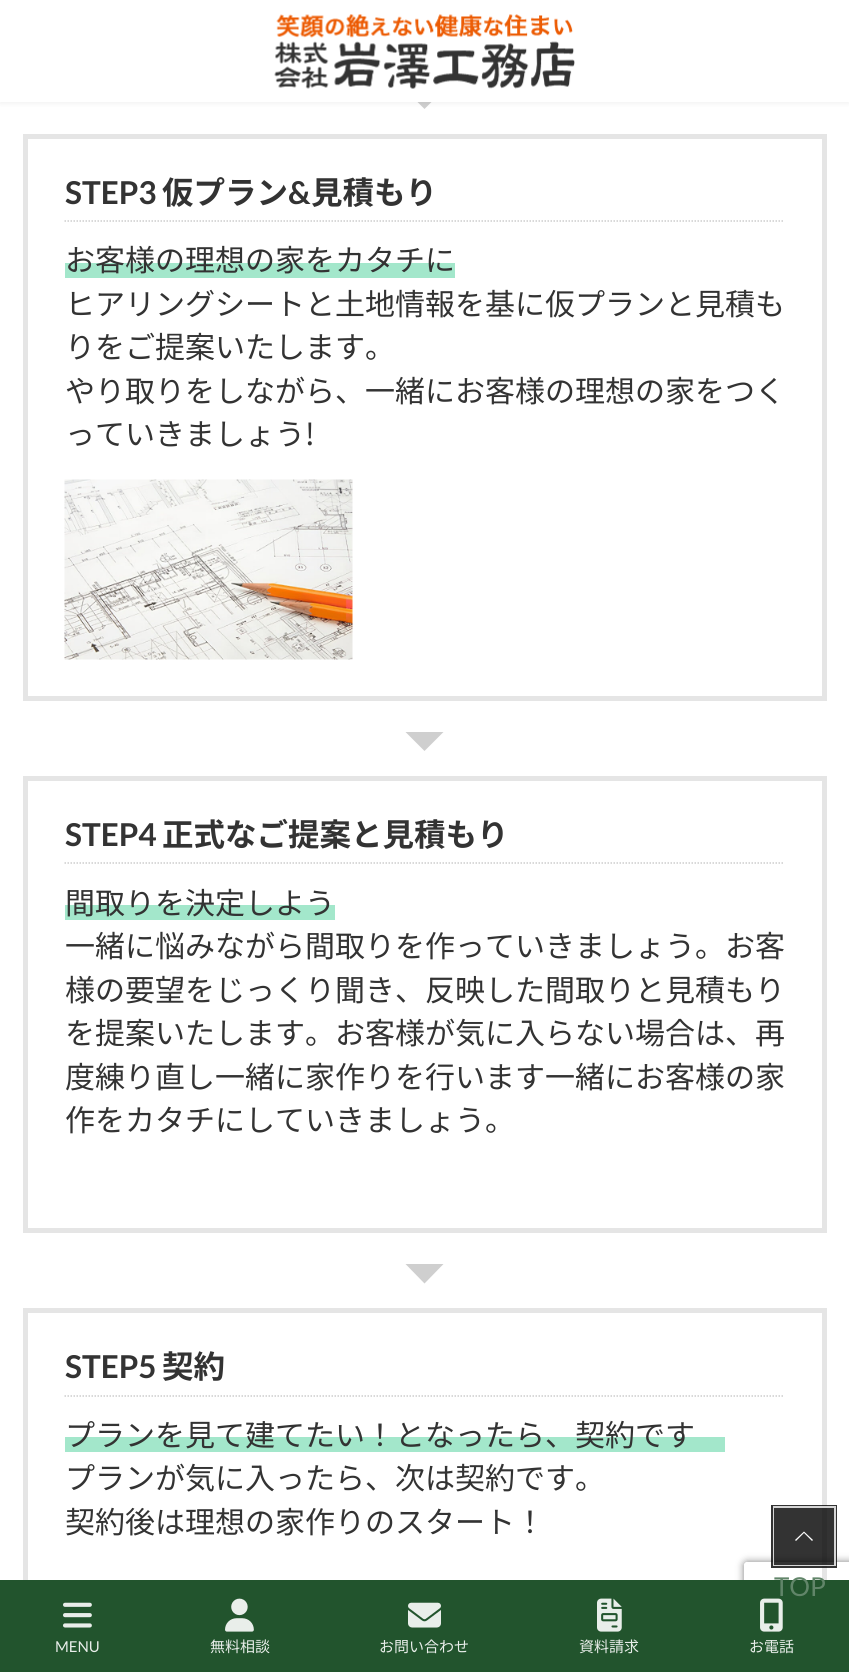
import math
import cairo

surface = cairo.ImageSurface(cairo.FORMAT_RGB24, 849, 1672)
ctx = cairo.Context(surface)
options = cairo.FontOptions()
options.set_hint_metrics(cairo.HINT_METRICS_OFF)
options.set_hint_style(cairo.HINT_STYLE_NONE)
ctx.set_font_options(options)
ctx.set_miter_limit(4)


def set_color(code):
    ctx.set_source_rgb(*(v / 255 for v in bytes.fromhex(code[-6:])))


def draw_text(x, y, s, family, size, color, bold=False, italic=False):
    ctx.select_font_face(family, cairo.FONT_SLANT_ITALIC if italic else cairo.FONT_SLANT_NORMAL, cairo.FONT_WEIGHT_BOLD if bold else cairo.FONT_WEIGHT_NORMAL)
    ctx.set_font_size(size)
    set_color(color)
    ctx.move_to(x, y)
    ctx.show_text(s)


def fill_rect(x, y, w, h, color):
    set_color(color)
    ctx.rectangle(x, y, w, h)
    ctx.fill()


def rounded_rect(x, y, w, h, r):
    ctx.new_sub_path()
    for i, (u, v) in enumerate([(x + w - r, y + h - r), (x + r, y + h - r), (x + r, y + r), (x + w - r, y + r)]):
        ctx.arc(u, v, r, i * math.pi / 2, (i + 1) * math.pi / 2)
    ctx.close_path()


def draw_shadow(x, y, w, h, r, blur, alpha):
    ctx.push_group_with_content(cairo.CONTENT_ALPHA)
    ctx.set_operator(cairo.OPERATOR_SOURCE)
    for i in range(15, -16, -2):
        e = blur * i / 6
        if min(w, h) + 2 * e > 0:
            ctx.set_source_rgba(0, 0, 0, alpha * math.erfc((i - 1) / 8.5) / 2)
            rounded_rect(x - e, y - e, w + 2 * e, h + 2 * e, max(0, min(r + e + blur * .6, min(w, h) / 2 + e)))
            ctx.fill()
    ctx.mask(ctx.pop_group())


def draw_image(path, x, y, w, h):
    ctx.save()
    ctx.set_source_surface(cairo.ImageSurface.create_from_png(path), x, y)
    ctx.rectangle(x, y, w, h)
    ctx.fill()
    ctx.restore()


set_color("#ffffff")
ctx.paint()
set_color("#cfcfcf")
ctx.new_path()
ctx.move_to(405.5, 90)
ctx.line_to(424.5, 109)
ctx.line_to(443.5, 90)
ctx.close_path()
ctx.fill()
set_color("#000000")
draw_shadow(0, 2, 849, 102, 0, 2, 0.05)
fill_rect(0, 0, 849, 102, "#ffffff")
draw_image("assets/img1.png", 274, 14, 301, 75)
ctx.rectangle(25.5, 136.5, 799, 562)
set_color("#e5e5e5")
ctx.set_line_width(5)
ctx.stroke()
ctx.new_path()
ctx.move_to(64.5, 221)
ctx.line_to(784.5, 221)
set_color("#cccccc")
ctx.set_line_width(1.5)
ctx.set_dash([1.5, 1.5])
ctx.stroke()
draw_text(65, 204, "STEP3", "Lato", 31.5, "#333333", bold=True)
draw_text(162, 204, "仮プラン", "Noto Sans JP", 31.5, "#333333", bold=True)
draw_text(288, 204, "&", "Lato", 31.5, "#333333", bold=True)
draw_text(311, 204, "見積もり", "Noto Sans JP", 31.5, "#333333", bold=True)
fill_rect(65, 263, 390, 15, "#a3e7cb")
draw_text(65, 271, "お客様の理想の家をカタチに", "Noto Sans JP", 30, "#333333")
draw_text(65, 315, "ヒアリングシートと土地情報を基に仮プランと見積も", "Noto Sans JP", 30, "#333333")
draw_text(65, 358, "りをご提案いたします。", "Noto Sans JP", 30, "#333333")
draw_text(65, 402, "やり取りをしながら、一緒にお客様の理想の家をつく", "Noto Sans JP", 30, "#333333")
draw_text(65, 445, "っていきましょう!", "Noto Sans JP", 30, "#333333")
draw_image("assets/img2.png", 64, 479, 289, 181)
set_color("#cfcfcf")
ctx.new_path()
ctx.move_to(405.5, 732)
ctx.line_to(424.5, 751)
ctx.line_to(443.5, 732)
ctx.close_path()
ctx.fill()
ctx.rectangle(25.5, 778.5, 799, 452)
set_color("#e5e5e5")
ctx.set_line_width(5)
ctx.set_dash([])
ctx.stroke()
ctx.new_path()
ctx.move_to(64.5, 863)
ctx.line_to(784.5, 863)
set_color("#cccccc")
ctx.set_line_width(1.5)
ctx.set_dash([1.5, 1.5])
ctx.stroke()
draw_text(65, 846, "STEP4", "Lato", 31.5, "#333333", bold=True)
draw_text(162, 846, "正式なご提案と見積もり", "Noto Sans JP", 31.5, "#333333", bold=True)
fill_rect(65, 905, 270, 15, "#a3e7cb")
draw_text(65, 914, "間取りを決定しよう", "Noto Sans JP", 30, "#333333")
draw_text(65, 957, "一緒に悩みながら間取りを作っていきましょう。お客", "Noto Sans JP", 30, "#333333")
draw_text(65, 1001, "様の要望をじっくり聞き、反映した間取りと見積もり", "Noto Sans JP", 30, "#333333")
draw_text(65, 1044, "を提案いたします。お客様が気に入らない場合は、再", "Noto Sans JP", 30, "#333333")
draw_text(65, 1088, "度練り直し一緒に家作りを行います一緒にお客様の家", "Noto Sans JP", 30, "#333333")
draw_text(65, 1131, "作をカタチにしていきましょう。", "Noto Sans JP", 30, "#333333")
set_color("#cfcfcf")
ctx.new_path()
ctx.move_to(405.5, 1264)
ctx.line_to(424.5, 1283.5)
ctx.line_to(443.5, 1264)
ctx.close_path()
ctx.fill()
ctx.rectangle(25.5, 1310.5, 799, 321)
set_color("#e5e5e5")
ctx.set_line_width(5)
ctx.set_dash([])
ctx.stroke()
ctx.new_path()
ctx.move_to(64.5, 1396)
ctx.line_to(784.5, 1396)
set_color("#cccccc")
ctx.set_line_width(1.5)
ctx.set_dash([1.5, 1.5])
ctx.stroke()
draw_text(65, 1378, "STEP5", "Lato", 31.5, "#333333", bold=True)
draw_text(162, 1378, "契約", "Noto Sans JP", 31.5, "#333333", bold=True)
fill_rect(65, 1437, 660, 15, "#a3e7cb")
draw_text(65, 1446, "プランを見て建てたい！となったら、契約です", "Noto Sans JP", 30, "#333333")
draw_text(65, 1489, "プランが気に入ったら、次は契約です。", "Noto Sans JP", 30, "#333333")
draw_text(65, 1533, "契約後は理想の家作りのスタート！", "Noto Sans JP", 30, "#333333")
ctx.save()
ctx.set_fill_rule(cairo.FILL_RULE_EVEN_ODD)
ctx.new_path()
ctx.move_to(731, 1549)
ctx.line_to(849, 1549)
ctx.line_to(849, 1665)
ctx.line_to(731, 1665)
ctx.close_path()
ctx.move_to(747, 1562)
ctx.line_to(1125, 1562)
ctx.curve_to(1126.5, 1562, 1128, 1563.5, 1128, 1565)
ctx.line_to(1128, 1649)
ctx.curve_to(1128, 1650.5, 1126.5, 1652, 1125, 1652)
ctx.line_to(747, 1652)
ctx.curve_to(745.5, 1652, 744, 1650.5, 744, 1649)
ctx.line_to(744, 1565)
ctx.curve_to(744, 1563.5, 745.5, 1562, 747, 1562)
ctx.close_path()
ctx.clip()
set_color("#808080")
draw_shadow(744, 1562, 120, 90, 3, 4, 1)
ctx.restore()
ctx.rectangle(772.5, 1506.5, 63, 60)
ctx.set_source_rgba(0, 0, 0, 0.8)
ctx.set_line_width(3)
ctx.set_dash([])
ctx.stroke()
ctx.rectangle(774, 1507, 61, 58)
ctx.set_source_rgba(1, 1, 1, 0.8)
ctx.set_line_width(2)
ctx.stroke()
ctx.set_source_rgba(0, 0, 0, 0.8)
ctx.rectangle(774, 1508, 60, 57)
ctx.fill()
set_color("#ffffff")
ctx.new_path()
ctx.move_to(813, 1540)
ctx.line_to(812, 1541)
ctx.line_to(804, 1533)
ctx.line_to(796, 1541)
ctx.line_to(795, 1540)
ctx.line_to(804, 1531.5)
ctx.close_path()
ctx.fill()
fill_rect(0, 1580, 849, 92, "#22542d")
draw_text(774, 1596, "TOP", "Lato", 26, "#618569")
draw_image("assets/img3.png", 63, 1602, 29, 26)
draw_text(55, 1652, "MENU", "Lato", 15, "#e9eeea")
draw_image("assets/img4.png", 225, 1598, 29, 34)
draw_text(210, 1652, "無料相談", "Noto Sans JP", 15, "#e9eeea")
draw_image("assets/img5.png", 408, 1602, 33, 26)
draw_text(379, 1652, "お問い合わせ", "Noto Sans JP", 15, "#e9eeea")
draw_image("assets/img6.png", 597, 1598, 25, 34)
draw_text(579, 1652, "資料請求", "Noto Sans JP", 15, "#e9eeea")
draw_image("assets/img7.png", 760, 1598, 23, 34)
draw_text(749, 1652, "お電話", "Noto Sans JP", 15, "#e9eeea")
surface.write_to_png("output.png")
